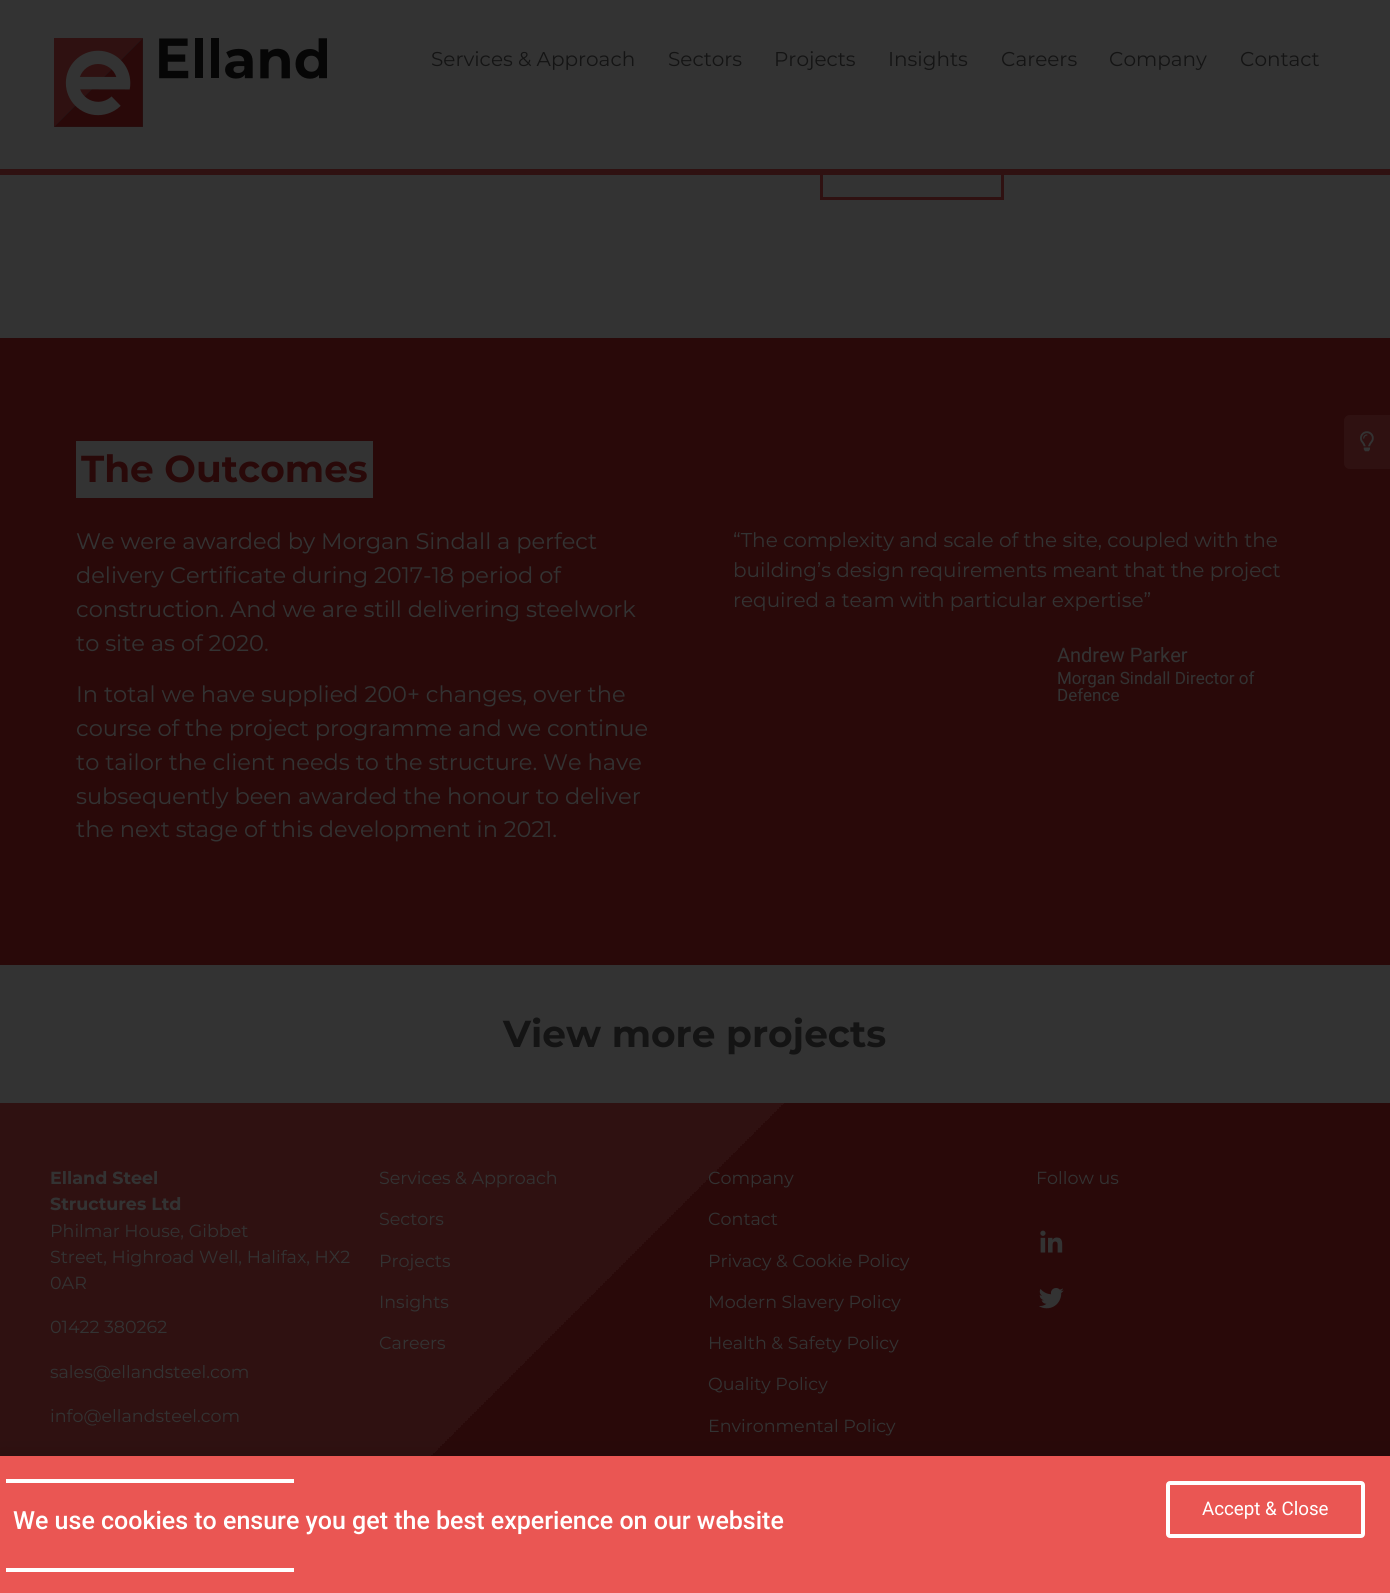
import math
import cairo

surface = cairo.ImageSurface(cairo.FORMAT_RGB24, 1390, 1593)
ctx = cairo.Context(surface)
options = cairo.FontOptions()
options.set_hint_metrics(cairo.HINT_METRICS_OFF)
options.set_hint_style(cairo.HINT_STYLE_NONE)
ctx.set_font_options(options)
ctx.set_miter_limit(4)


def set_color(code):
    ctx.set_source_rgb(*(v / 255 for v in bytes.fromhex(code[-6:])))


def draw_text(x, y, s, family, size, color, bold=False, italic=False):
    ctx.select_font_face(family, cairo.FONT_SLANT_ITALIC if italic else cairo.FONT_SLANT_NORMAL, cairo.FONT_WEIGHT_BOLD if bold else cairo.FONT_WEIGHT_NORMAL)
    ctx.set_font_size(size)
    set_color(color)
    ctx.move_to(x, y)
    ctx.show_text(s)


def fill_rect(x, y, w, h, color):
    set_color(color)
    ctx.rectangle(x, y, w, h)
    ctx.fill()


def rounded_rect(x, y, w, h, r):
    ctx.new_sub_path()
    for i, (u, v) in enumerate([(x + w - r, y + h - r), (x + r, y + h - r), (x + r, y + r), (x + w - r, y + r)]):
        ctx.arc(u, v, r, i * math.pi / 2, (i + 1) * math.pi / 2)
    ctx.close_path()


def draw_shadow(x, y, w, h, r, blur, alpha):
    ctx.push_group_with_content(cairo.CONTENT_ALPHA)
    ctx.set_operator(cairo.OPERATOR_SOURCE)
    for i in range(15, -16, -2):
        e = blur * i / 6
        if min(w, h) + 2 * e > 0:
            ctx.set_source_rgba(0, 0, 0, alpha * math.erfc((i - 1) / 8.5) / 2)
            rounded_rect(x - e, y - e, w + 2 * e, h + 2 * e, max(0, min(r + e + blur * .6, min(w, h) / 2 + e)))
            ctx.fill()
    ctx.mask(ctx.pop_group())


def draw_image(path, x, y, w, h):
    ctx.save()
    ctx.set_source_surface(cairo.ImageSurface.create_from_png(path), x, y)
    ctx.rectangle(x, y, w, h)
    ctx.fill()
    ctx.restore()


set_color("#333333")
ctx.paint()
ctx.rectangle(821.5, 146.5, 181, 52)
set_color("#2f1111")
ctx.set_line_width(3)
ctx.stroke()
fill_rect(820, 145, 184, 24, "#333333")
fill_rect(0, 169, 1390, 6, "#2f1111")
draw_image("assets/img1.png", 54, 38, 273, 89)
draw_text(431, 66, "Services & Approach", "Montserrat", 20, "#141414")
draw_text(668, 66, "Sectors", "Montserrat", 20, "#141414")
draw_text(774, 66, "Projects", "Montserrat", 20, "#141414")
draw_text(888, 66, "Insights", "Montserrat", 20, "#141414")
draw_text(1001, 66, "Careers", "Montserrat", 20, "#141414")
draw_text(1109, 66, "Company", "Montserrat", 20, "#141414")
draw_text(1240, 66, "Contact", "Montserrat", 20, "#141414")
fill_rect(0, 338, 1390, 627, "#290909")
set_color("#2f1111")
ctx.new_path()
ctx.move_to(1350, 415)
ctx.line_to(1390, 415)
ctx.line_to(1390, 469)
ctx.line_to(1350, 469)
ctx.curve_to(1346.5, 469, 1344, 466.5, 1344, 463)
ctx.line_to(1344, 421)
ctx.curve_to(1344, 417.5, 1346.5, 415, 1350, 415)
ctx.close_path()
ctx.fill()
draw_image("assets/img2.png", 1360, 431, 14, 21)
fill_rect(76, 441, 297, 57, "#333333")
draw_text(81, 482, "The Outcomes", "Montserrat", 37.5, "#290909", bold=True)
draw_text(76, 549, "We were awarded by Morgan Sindall a perfect", "Montserrat", 22.5, "#333333")
draw_text(76, 583, "delivery Certificate during 2017-18 period of", "Montserrat", 22.5, "#333333")
draw_text(76, 617, "construction. And we are still delivering steelwork", "Montserrat", 22.5, "#333333")
draw_text(76, 651, "to site as of 2020.", "Montserrat", 22.5, "#333333")
draw_text(76, 702, "In total we have supplied 200+ changes, over the", "Montserrat", 22.5, "#333333")
draw_text(76, 736, "course of the project programme and we continue", "Montserrat", 22.5, "#333333")
draw_text(76, 770, "to tailor the client needs to the structure. We have", "Montserrat", 22.5, "#333333")
draw_text(76, 804, "subsequently been awarded the honour to deliver", "Montserrat", 22.5, "#333333")
draw_text(76, 837, "the next stage of this development in 2021.", "Montserrat", 22.5, "#333333")
draw_text(733, 547, "“The complexity and scale of the site, coupled with the", "Montserrat", 20, "#333333")
draw_text(733, 577, "building’s design requirements meant that the project", "Montserrat", 20, "#333333")
draw_text(733, 607, "required a team with particular expertise”", "Montserrat", 20, "#333333")
draw_text(1057, 662, "Andrew Parker", "Roboto", 20, "#333333")
draw_text(1057, 684, "Morgan Sindall Director of", "Roboto", 17, "#333333")
draw_text(1057, 701, "Defence", "Roboto", 17, "#333333")
draw_text(503, 1047, "View more projects", "Montserrat", 37.5, "#141414", bold=True)
gradient = cairo.LinearGradient(1185, 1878, 205, 898)
gradient.add_color_stop_rgba(0.6, 0.161, 0.035, 0.035, 1)
gradient.add_color_stop_rgba(0.6, 0.184, 0.067, 0.067, 1)
ctx.set_source(gradient)
ctx.rectangle(0, 1103, 1390, 353)
ctx.fill()
draw_text(50, 1184, "Elland Steel", "Montserrat", 17.5, "#333333", bold=True)
draw_text(50, 1210, "Structures Ltd", "Montserrat", 17.5, "#333333", bold=True)
draw_text(50, 1237, "Philmar House, Gibbet", "Montserrat", 17.5, "#333333")
draw_text(50, 1263, "Street, Highroad Well, Halifax, HX2", "Montserrat", 17.5, "#333333")
draw_text(50, 1289, "0AR", "Montserrat", 17.5, "#333333")
draw_text(50, 1333, "01422 380262", "Montserrat", 17.5, "#333333")
draw_text(50, 1378, "sales@ellandsteel.com", "Montserrat", 17.5, "#333333")
draw_text(50, 1422, "info@ellandsteel.com", "Montserrat", 17.5, "#333333")
draw_text(379, 1184, "Services & Approach", "Montserrat", 17.5, "#333333")
draw_text(379, 1225, "Sectors", "Montserrat", 17.5, "#333333")
draw_text(379, 1267, "Projects", "Montserrat", 17.5, "#333333")
draw_text(379, 1308, "Insights", "Montserrat", 17.5, "#333333")
draw_text(379, 1349, "Careers", "Montserrat", 17.5, "#333333")
draw_text(708, 1184, "Company", "Montserrat", 17.5, "#333333")
draw_text(708, 1225, "Contact", "Montserrat", 17.5, "#333333")
draw_text(708, 1267, "Privacy & Cookie Policy", "Montserrat", 17.5, "#333333")
draw_text(708, 1308, "Modern Slavery Policy", "Montserrat", 17.5, "#333333")
draw_text(708, 1349, "Health & Safety Policy", "Montserrat", 17.5, "#333333")
draw_text(708, 1390, "Quality Policy", "Montserrat", 17.5, "#333333")
draw_text(708, 1432, "Environmental Policy", "Montserrat", 17.5, "#333333")
draw_text(1036, 1184, "Follow us", "Montserrat", 17.5, "#333333")
draw_image("assets/img3.png", 1040, 1230, 23, 23)
draw_image("assets/img4.png", 1039, 1288, 25, 21)
set_color("#000000")
draw_shadow(-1, 1463, 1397, 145, 0, 14.5, 0.2)
fill_rect(0, 1456, 1390, 137, "#ea5653")
fill_rect(6, 1479, 288, 4, "#ffffff")
draw_text(13, 1529, "We use cookies to ensure you get the best experience on our website", "Roboto Medium", 25, "#ffffff")
fill_rect(6, 1568, 288, 4, "#ffffff")
rounded_rect(1168, 1483, 195, 53, 2)
ctx.set_line_width(4)
ctx.stroke()
draw_text(1202, 1515, "Accept & Close", "Roboto", 18.75, "#ffffff")
surface.write_to_png("output.png")
